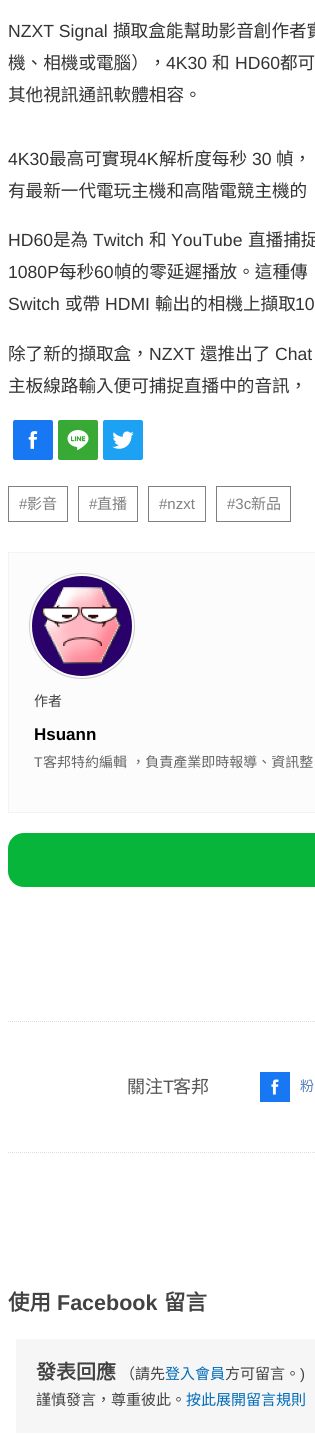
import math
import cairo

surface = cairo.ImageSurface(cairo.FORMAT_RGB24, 315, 1434)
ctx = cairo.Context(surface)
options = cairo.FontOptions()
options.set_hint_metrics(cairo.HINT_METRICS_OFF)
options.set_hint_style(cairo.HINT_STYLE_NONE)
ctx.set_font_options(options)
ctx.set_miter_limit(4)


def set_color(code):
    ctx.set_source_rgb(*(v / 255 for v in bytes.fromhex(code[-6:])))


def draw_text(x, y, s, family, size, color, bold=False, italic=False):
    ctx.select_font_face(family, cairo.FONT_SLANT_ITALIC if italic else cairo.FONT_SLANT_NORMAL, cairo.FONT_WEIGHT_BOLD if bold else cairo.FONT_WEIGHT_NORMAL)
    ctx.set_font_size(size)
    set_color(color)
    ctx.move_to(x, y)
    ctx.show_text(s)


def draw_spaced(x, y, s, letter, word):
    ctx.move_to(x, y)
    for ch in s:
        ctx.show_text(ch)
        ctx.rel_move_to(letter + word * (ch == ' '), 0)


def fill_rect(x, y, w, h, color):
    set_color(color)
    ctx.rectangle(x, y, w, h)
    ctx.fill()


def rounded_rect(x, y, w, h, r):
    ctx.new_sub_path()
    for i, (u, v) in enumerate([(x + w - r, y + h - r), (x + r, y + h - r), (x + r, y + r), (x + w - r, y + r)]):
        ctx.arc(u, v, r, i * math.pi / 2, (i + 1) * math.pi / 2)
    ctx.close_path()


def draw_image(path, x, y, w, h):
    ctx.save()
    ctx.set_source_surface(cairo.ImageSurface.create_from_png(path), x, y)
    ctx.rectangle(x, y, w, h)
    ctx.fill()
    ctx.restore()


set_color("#ffffff")
ctx.paint()
draw_text(8, 37, "NZXT Signal", "Liberation Sans", 17.6, "#333333")
draw_text(113, 37, "擷取盒能幫助影音創作者實", "Noto Sans CJK TC", 17.6, "#333333")
draw_text(8, 69, "機、相機或電腦），", "Noto Sans CJK TC", 17.6, "#333333")
draw_text(166, 69, "4K30", "Liberation Sans", 17.6, "#333333")
draw_text(212, 69, "和", "Noto Sans CJK TC", 17.6, "#333333")
draw_text(235, 69, "HD60", "Liberation Sans", 17.6, "#333333")
draw_text(280, 69, "都可", "Noto Sans CJK TC", 17.6, "#333333")
draw_text(8, 101, "其他視訊通訊軟體相容。", "Noto Sans CJK TC", 17.6, "#333333")
draw_text(8, 165, "4K30", "Liberation Sans", 17.6, "#333333")
draw_text(49, 165, "最高可實現", "Noto Sans CJK TC", 17.6, "#333333")
draw_text(137, 165, "4K", "Liberation Sans", 17.6, "#333333")
draw_text(159, 165, "解析度每秒", "Noto Sans CJK TC", 17.6, "#333333")
draw_text(252, 165, "30", "Liberation Sans", 17.6, "#333333")
draw_text(276, 165, "幀，", "Noto Sans CJK TC", 17.6, "#333333")
draw_text(8, 197, "有最新一代電玩主機和高階電競主機的", "Noto Sans CJK TC", 17.6, "#333333")
draw_text(8, 246, "HD60", "Liberation Sans", 17.6, "#333333")
draw_text(53, 246, "是為", "Noto Sans CJK TC", 17.6, "#333333")
draw_text(93, 246, "Twitch", "Liberation Sans", 17.6, "#333333")
draw_text(149, 246, "和", "Noto Sans CJK TC", 17.6, "#333333")
draw_text(171, 246, "YouTube", "Liberation Sans", 17.6, "#333333")
draw_text(248, 246, "直播捕捉", "Noto Sans CJK TC", 17.6, "#333333")
draw_text(8, 278, "1080P", "Liberation Sans", 17.6, "#333333")
draw_text(59, 278, "每秒", "Noto Sans CJK TC", 17.6, "#333333")
draw_text(94, 278, "60", "Liberation Sans", 17.6, "#333333")
draw_text(114, 278, "幀的零延遲播放。這種傳", "Noto Sans CJK TC", 17.6, "#333333")
draw_text(8, 310, "Switch", "Liberation Sans", 17.6, "#333333")
draw_text(65, 310, "或帶", "Noto Sans CJK TC", 17.6, "#333333")
draw_text(105, 310, "HDMI", "Liberation Sans", 17.6, "#333333")
draw_text(155, 310, "輸出的相機上擷取", "Noto Sans CJK TC", 17.6, "#333333")
draw_text(295, 310, "10", "Liberation Sans", 17.6, "#333333")
draw_text(8, 360, "除了新的擷取盒，", "Noto Sans CJK TC", 17.6, "#333333")
draw_text(149, 360, "NZXT", "Liberation Sans", 17.6, "#333333")
draw_text(200, 360, "還推出了", "Noto Sans CJK TC", 17.6, "#333333")
draw_text(275, 360, "Chat", "Liberation Sans", 17.6, "#333333")
draw_text(8, 392, "主板線路輸入便可捕捉直播中的音訊，", "Noto Sans CJK TC", 17.6, "#333333")
set_color("#1877f2")
rounded_rect(13, 420, 40, 40, 2)
ctx.fill()
draw_image("assets/img1.png", 28, 431, 10, 18)
set_color("#39a935")
rounded_rect(58, 420, 40, 40, 2)
ctx.fill()
draw_image("assets/img2.png", 67, 430, 22, 20)
set_color("#1da1f2")
rounded_rect(103, 420, 40, 40, 2)
ctx.fill()
draw_image("assets/img3.png", 112, 431, 22, 18)
ctx.rectangle(8.5, 486.5, 59, 35)
set_color("#808080")
ctx.set_line_width(1)
ctx.stroke()
draw_text(19, 509, "#", "Liberation Sans", 15, "#808080")
draw_text(27, 509, "影音", "Noto Sans CJK TC", 15, "#808080")
ctx.rectangle(78.5, 486.5, 59, 35)
ctx.stroke()
draw_text(89, 509, "#", "Liberation Sans", 15, "#808080")
draw_text(97, 509, "直播", "Noto Sans CJK TC", 15, "#808080")
ctx.rectangle(148.5, 486.5, 57, 35)
ctx.stroke()
draw_text(159, 509, "#nzxt", "Liberation Sans", 15, "#808080")
ctx.rectangle(216.5, 486.5, 74, 35)
ctx.stroke()
draw_text(227, 509, "#3c", "Liberation Sans", 15, "#808080")
draw_text(251, 509, "新品", "Noto Sans CJK TC", 15, "#808080")
set_color("#fcfcfc")
ctx.rectangle(8.5, 552.5, 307, 260)
ctx.fill_preserve()
set_color("#f3f3f3")
ctx.stroke()
ctx.arc(82, 626, 52.5, 0, 2 * math.pi)
set_color("#cccccc")
ctx.stroke()
draw_image("assets/img4.png", 32, 576, 100, 100)
draw_text(34, 706, "作者", "Noto Sans CJK TC", 14, "#424242")
draw_text(34, 740, "Hsuann", "Liberation Sans", 17, "#000000", bold=True)
draw_text(34, 767, "T", "Liberation Sans", 14, "#666666")
ctx.select_font_face("Noto Sans CJK TC")
draw_spaced(43, 767, "客邦特約編輯 ，負責產業即時報導、資訊整", 0, 1)
set_color("#07b53b")
ctx.new_path()
ctx.move_to(24, 833)
ctx.line_to(315, 833)
ctx.line_to(315, 887)
ctx.line_to(24, 887)
ctx.curve_to(15, 887, 8, 880, 8, 871)
ctx.line_to(8, 849)
ctx.curve_to(8, 840, 15, 833, 24, 833)
ctx.close_path()
ctx.fill()
ctx.new_path()
ctx.move_to(8, 1021.5)
ctx.line_to(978, 1021.5)
set_color("#dddddd")
ctx.set_dash([1, 1])
ctx.stroke()
ctx.new_path()
ctx.move_to(8, 1152.5)
ctx.line_to(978, 1152.5)
ctx.stroke()
draw_text(127, 1093, "關注", "Noto Sans CJK TC", 18, "#555555")
draw_text(163, 1093, "T", "Liberation Sans", 18, "#555555")
draw_text(173, 1093, "客邦", "Noto Sans CJK TC", 18, "#555555")
draw_image("assets/img5.png", 260, 1072, 30, 30)
draw_text(300, 1091, "粉", "Noto Sans CJK TC", 14, "#537abb")
draw_text(8, 1310, "使用", "Noto Sans CJK TC", 21.5, "#424242", bold=True)
draw_text(57, 1310, "Facebook", "Liberation Sans", 21.5, "#424242", bold=True)
draw_text(164, 1310, "留言", "Noto Sans CJK TC", 21.5, "#424242", bold=True)
fill_rect(16, 1339, 299, 94, "#f6f6f6")
draw_text(36, 1379, "發表回應", "Noto Sans CJK TC", 20, "#424242", bold=True)
draw_text(120, 1379, "（請先", "Noto Sans CJK TC", 15, "#424242")
draw_text(165, 1379, "登入會員", "Noto Sans CJK TC", 15, "#006bb8")
draw_text(225, 1379, "方可留言。", "Noto Sans CJK TC", 15, "#424242")
draw_text(300, 1379, ")", "Liberation Sans", 15, "#424242")
draw_text(36, 1405, "謹慎發言，尊重彼此。", "Noto Sans CJK TC", 15, "#424242")
draw_text(186, 1405, "按此展開留言規則", "Noto Sans CJK TC", 15, "#006bb8")
surface.write_to_png("output.png")
